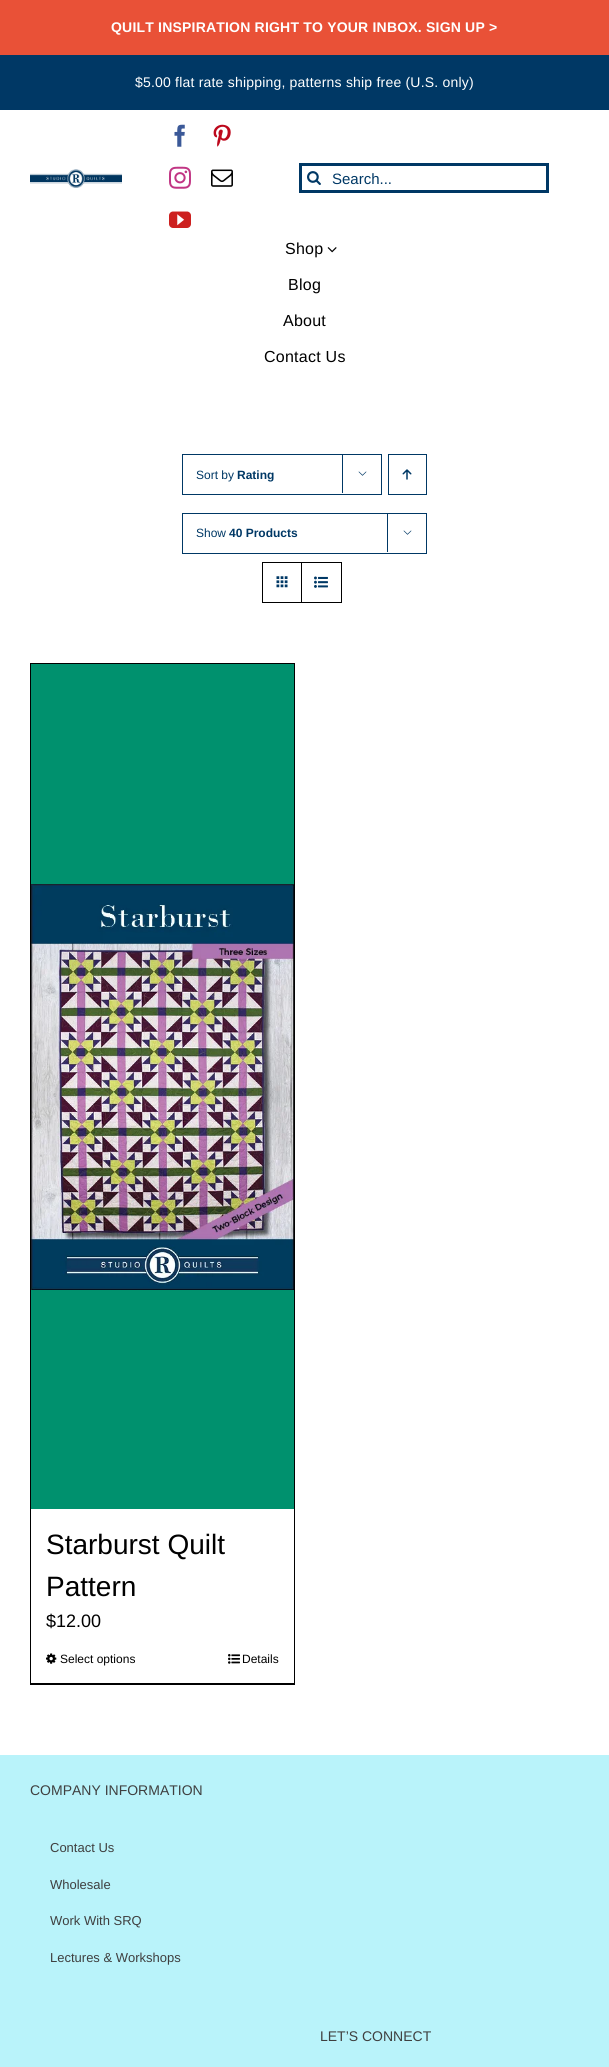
import math
import cairo

surface = cairo.ImageSurface(cairo.FORMAT_RGB24, 609, 2067)
ctx = cairo.Context(surface)
options = cairo.FontOptions()
options.set_hint_metrics(cairo.HINT_METRICS_OFF)
options.set_hint_style(cairo.HINT_STYLE_NONE)
ctx.set_font_options(options)
ctx.set_miter_limit(4)


def set_color(code):
    ctx.set_source_rgb(*(v / 255 for v in bytes.fromhex(code[-6:])))


def draw_text(x, y, s, family, size, color, bold=False, italic=False):
    ctx.select_font_face(family, cairo.FONT_SLANT_ITALIC if italic else cairo.FONT_SLANT_NORMAL, cairo.FONT_WEIGHT_BOLD if bold else cairo.FONT_WEIGHT_NORMAL)
    ctx.set_font_size(size)
    set_color(color)
    ctx.move_to(x, y)
    ctx.show_text(s)


def draw_spaced(x, y, s, letter, word):
    ctx.move_to(x, y)
    for ch in s:
        ctx.show_text(ch)
        ctx.rel_move_to(letter + word * (ch == ' '), 0)


def fill_rect(x, y, w, h, color):
    set_color(color)
    ctx.rectangle(x, y, w, h)
    ctx.fill()


def draw_image(path, x, y, w, h):
    ctx.save()
    ctx.set_source_surface(cairo.ImageSurface.create_from_png(path), x, y)
    ctx.rectangle(x, y, w, h)
    ctx.fill()
    ctx.restore()


set_color("#ffffff")
ctx.paint()
fill_rect(0, 0, 609, 55, "#e95137")
ctx.select_font_face("Liberation Sans", cairo.FONT_SLANT_NORMAL, cairo.FONT_WEIGHT_BOLD)
ctx.set_font_size(14)
set_color("#ffffff")
draw_spaced(111, 32, "QUILT INSPIRATION RIGHT TO YOUR INBOX. SIGN UP >", 0.2, 0)
fill_rect(0, 55, 609, 55, "#003865")
ctx.select_font_face("Liberation Sans")
set_color("#ffffff")
draw_spaced(135, 87, "$5.00 flat rate shipping, patterns ship free (U.S. only)", 0.2, 0)
draw_image("assets/img1.png", 30, 169, 92, 19)
draw_image("assets/img2.png", 174, 124, 11, 23)
draw_image("assets/img3.png", 213, 124, 18, 23)
draw_image("assets/img4.png", 169, 166, 22, 23)
draw_image("assets/img5.png", 211, 169, 22, 18)
draw_image("assets/img6.png", 169, 211, 22, 17)
ctx.rectangle(300.5, 164.5, 247, 27)
set_color("#003865")
ctx.set_line_width(3)
ctx.stroke()
draw_image("assets/img7.png", 307, 171, 14, 14)
draw_text(332, 184, "Search...", "Liberation Sans", 15, "#003865")
ctx.set_font_size(16)
set_color("#000000")
draw_spaced(285, 254, "Shop", 0.25, 0)
draw_image("assets/img8.png", 327, 247, 10, 6)
draw_spaced(288, 290, "Blog", 0.25, 0)
draw_spaced(283, 326, "About", 0.25, 0)
draw_spaced(264, 362, "Contact Us", 0.25, 0)
ctx.rectangle(182.5, 454.5, 199, 40)
set_color("#003865")
ctx.set_line_width(1)
ctx.stroke()
draw_text(196, 479, "Sort by", "Liberation Sans", 12, "#003865")
draw_text(237, 479, "Rating", "Liberation Sans", 12, "#003865", bold=True)
fill_rect(342, 454, 1, 39, "#003865")
draw_image("assets/img9.png", 358, 471, 9, 5)
ctx.rectangle(388.5, 454.5, 38, 40)
ctx.stroke()
draw_image("assets/img10.png", 402, 469, 10, 11)
ctx.rectangle(182.5, 513.5, 244, 40)
ctx.stroke()
draw_text(196, 537, "Show", "Liberation Sans", 12, "#003865")
draw_text(229, 537, "40 Products", "Liberation Sans", 12, "#003865", bold=True)
fill_rect(387, 513, 1, 39, "#003865")
draw_image("assets/img9.png", 403, 530, 9, 5)
ctx.rectangle(262.5, 562.5, 79, 40)
set_color("#000000")
ctx.stroke()
fill_rect(301, 563, 1, 39, "#000000")
draw_image("assets/img11.png", 276, 576, 12, 12)
draw_image("assets/img12.png", 314, 576, 14, 12)
fill_rect(30, 663, 265, 1, "#000000")
fill_rect(294, 663, 1, 1022, "#000000")
fill_rect(30, 1683, 265, 2, "#000000")
fill_rect(30, 663, 1, 1022, "#000000")
fill_rect(31, 664, 263, 845, "#00916e")
draw_image("assets/img13.png", 31, 884, 263, 406)
draw_text(46, 1554, "Starburst Quilt", "Liberation Sans", 28, "#000000")
draw_text(46, 1596, "Pattern", "Liberation Sans", 28, "#000000")
draw_text(46, 1627, "$12.00", "Liberation Sans", 18, "#000000")
draw_image("assets/img14.png", 46, 1653, 11, 11)
draw_text(60, 1663, "Select options", "Liberation Sans", 12, "#000000")
draw_image("assets/img15.png", 228, 1654, 12, 10)
draw_text(242, 1663, "Details", "Liberation Sans", 12, "#000000")
fill_rect(0, 1755, 609, 312, "#b9f3fa")
draw_text(30, 1795, "COMPANY INFORMATION", "Liberation Sans", 14, "#3f3f3f")
draw_text(50, 1852, "Contact Us", "Liberation Sans", 13, "#3f3f3f")
draw_text(50, 1889, "Wholesale", "Liberation Sans", 13, "#3f3f3f")
draw_text(50, 1925, "Work With SRQ", "Liberation Sans", 13, "#3f3f3f")
draw_text(50, 1962, "Lectures & Workshops", "Liberation Sans", 13, "#3f3f3f")
draw_text(320, 2041, "LET’S CONNECT", "Liberation Sans", 14, "#3f3f3f")
surface.write_to_png("output.png")
